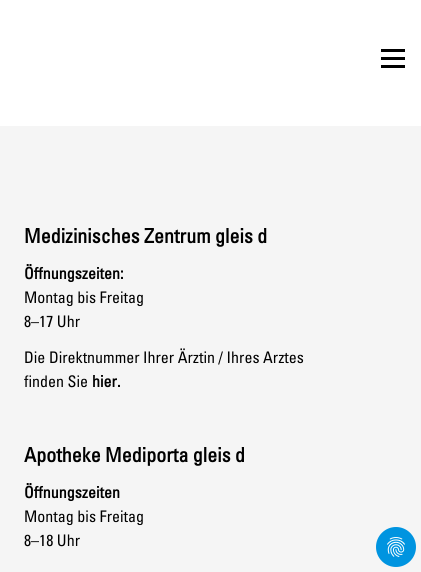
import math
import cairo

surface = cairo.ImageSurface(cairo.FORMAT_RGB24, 421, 572)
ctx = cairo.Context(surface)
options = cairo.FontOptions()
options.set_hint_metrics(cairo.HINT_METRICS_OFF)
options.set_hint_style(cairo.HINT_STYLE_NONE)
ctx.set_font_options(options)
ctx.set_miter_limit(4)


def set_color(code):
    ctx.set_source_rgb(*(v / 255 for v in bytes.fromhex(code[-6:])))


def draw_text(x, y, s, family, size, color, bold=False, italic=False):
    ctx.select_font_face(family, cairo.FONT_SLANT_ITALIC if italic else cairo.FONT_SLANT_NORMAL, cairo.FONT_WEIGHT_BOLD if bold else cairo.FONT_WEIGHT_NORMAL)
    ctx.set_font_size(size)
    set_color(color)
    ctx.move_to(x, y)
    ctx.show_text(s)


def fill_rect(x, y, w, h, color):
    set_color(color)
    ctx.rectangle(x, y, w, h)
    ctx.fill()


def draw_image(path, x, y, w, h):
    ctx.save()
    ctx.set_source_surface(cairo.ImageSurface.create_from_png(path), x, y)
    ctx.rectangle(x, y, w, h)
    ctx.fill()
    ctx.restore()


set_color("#ffffff")
ctx.paint()
fill_rect(381, 49, 24, 3, "#000000")
fill_rect(381, 57, 24, 3, "#000000")
fill_rect(381, 65, 24, 3, "#000000")
fill_rect(0, 126, 421, 446, "#f5f5f5")
draw_text(24, 243, "Medizinisches Zentrum gleis d", "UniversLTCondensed", 20, "#000000", bold=True)
draw_text(24, 279, "Öffnungszeiten:", "UniversLTCondensed", 16, "#000000", bold=True)
draw_text(24, 303, "Montag bis Freitag", "UniversLTCondensed", 16, "#000000")
draw_text(24, 327, "8–17 Uhr", "UniversLTCondensed", 16, "#000000")
draw_text(24, 363, "Die Direktnummer Ihrer Ärztin / Ihres Arztes", "UniversLTCondensed", 16, "#000000")
draw_text(24, 387, "finden Sie", "UniversLTCondensed", 16, "#000000")
draw_text(92, 387, "hier.", "UniversLTCondensed", 16, "#000000", bold=True)
draw_text(24, 462, "Apotheke Mediporta gleis d", "UniversLTCondensed", 20, "#000000", bold=True)
draw_text(24, 498, "Öffnungszeiten", "UniversLTCondensed", 16, "#000000", bold=True)
draw_text(24, 522, "Montag bis Freitag", "UniversLTCondensed", 16, "#000000")
draw_text(24, 546, "8–18 Uhr", "UniversLTCondensed", 16, "#000000")
set_color("#0094e0")
ctx.new_path()
ctx.arc(396, 547, 20, 0, 2 * math.pi)
ctx.fill()
draw_image("assets/img1.png", 387, 537, 18, 20)
surface.write_to_png("output.png")
